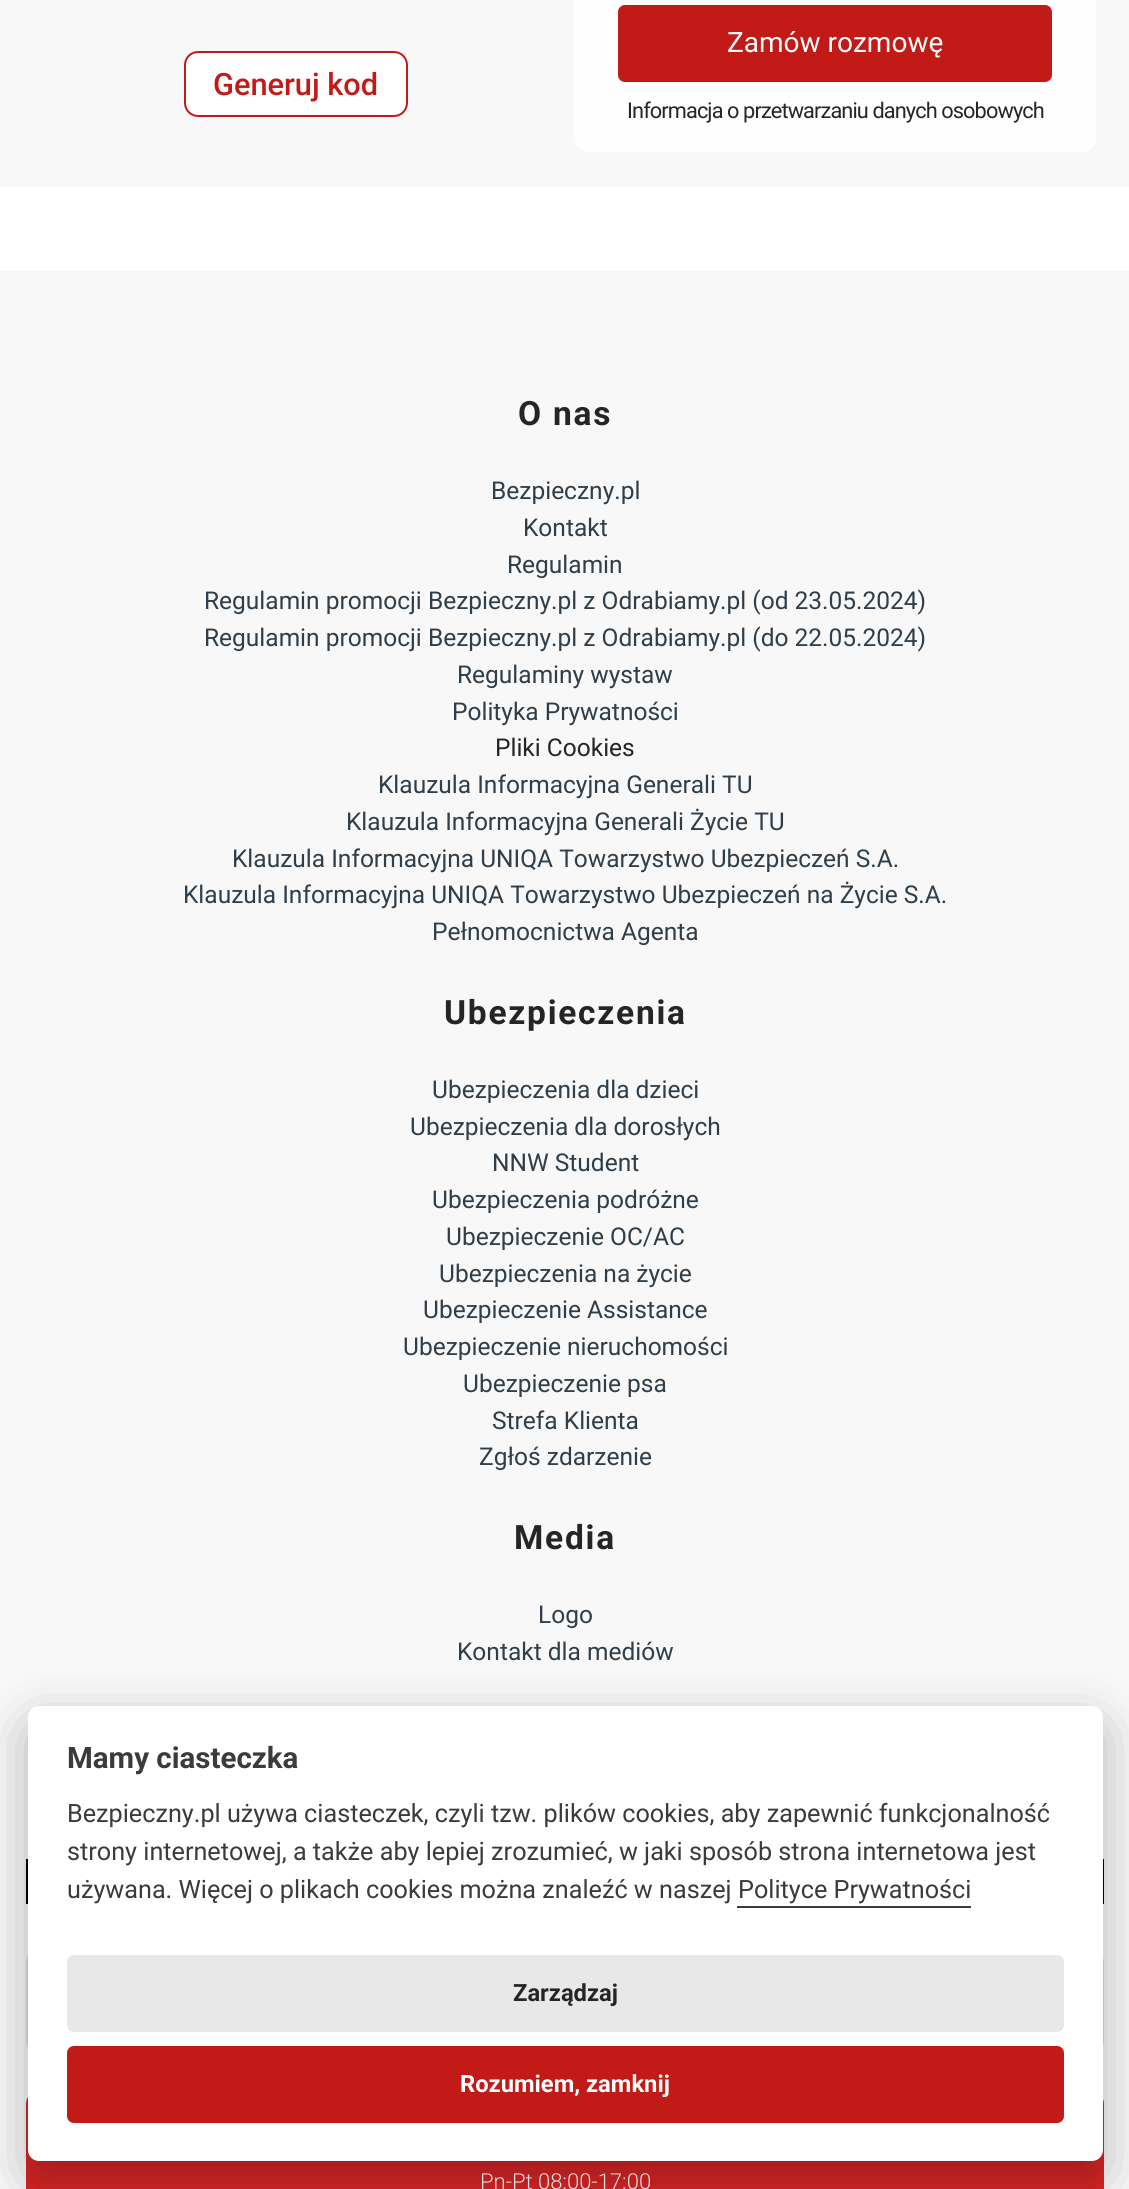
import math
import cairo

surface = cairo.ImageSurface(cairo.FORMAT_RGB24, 1129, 2189)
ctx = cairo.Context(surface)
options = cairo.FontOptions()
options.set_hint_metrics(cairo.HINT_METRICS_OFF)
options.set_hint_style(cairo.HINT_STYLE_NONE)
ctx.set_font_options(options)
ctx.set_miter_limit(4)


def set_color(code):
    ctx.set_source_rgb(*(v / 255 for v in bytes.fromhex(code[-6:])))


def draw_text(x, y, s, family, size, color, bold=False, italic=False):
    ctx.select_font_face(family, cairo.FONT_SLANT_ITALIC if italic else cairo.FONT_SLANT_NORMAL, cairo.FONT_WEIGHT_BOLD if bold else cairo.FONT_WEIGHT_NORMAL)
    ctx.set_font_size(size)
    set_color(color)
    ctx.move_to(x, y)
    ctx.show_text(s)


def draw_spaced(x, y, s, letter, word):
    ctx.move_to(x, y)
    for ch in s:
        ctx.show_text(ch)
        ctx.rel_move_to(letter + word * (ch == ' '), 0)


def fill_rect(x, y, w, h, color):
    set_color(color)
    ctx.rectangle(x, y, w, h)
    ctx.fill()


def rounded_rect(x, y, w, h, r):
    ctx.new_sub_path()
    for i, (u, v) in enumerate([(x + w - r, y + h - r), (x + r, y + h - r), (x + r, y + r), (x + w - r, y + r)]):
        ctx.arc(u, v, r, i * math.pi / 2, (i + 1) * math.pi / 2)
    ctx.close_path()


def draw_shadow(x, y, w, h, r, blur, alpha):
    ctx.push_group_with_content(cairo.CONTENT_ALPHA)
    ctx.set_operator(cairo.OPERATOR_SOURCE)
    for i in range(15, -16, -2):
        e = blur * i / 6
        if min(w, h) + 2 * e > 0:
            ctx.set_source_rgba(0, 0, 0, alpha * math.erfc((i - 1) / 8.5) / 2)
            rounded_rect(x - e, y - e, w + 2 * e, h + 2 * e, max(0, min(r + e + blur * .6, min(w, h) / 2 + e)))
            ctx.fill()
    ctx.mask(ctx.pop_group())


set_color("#ffffff")
ctx.paint()
fill_rect(0, 0, 1129, 187, "#f8f8f8")
set_color("#ffffff")
rounded_rect(185, 52, 222, 64, 13)
ctx.fill_preserve()
set_color("#c21b17")
ctx.stroke()
draw_text(213, 95, "Generuj kod", "Roboto Medium", 30.75, "#c21b17")
ctx.set_source_rgba(1, 1, 1, 0.9)
rounded_rect(574, -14, 522, 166, 14)
ctx.fill()
set_color("#c21b17")
rounded_rect(618, 5, 434, 77, 7)
ctx.fill()
draw_text(727, 52, "Zamów rozmowę", "Roboto", 28, "#ffffff")
ctx.set_font_size(21.75)
set_color("#252525")
draw_spaced(627, 118, "Informacja o przetwarzaniu danych osobowych", -0.9, 0)
fill_rect(0, 271, 1129, 1918, "#f8f8f8")
ctx.select_font_face("Roboto", cairo.FONT_SLANT_NORMAL, cairo.FONT_WEIGHT_BOLD)
ctx.set_font_size(33.5)
set_color("#252525")
draw_spaced(518, 425, "O nas", 1.75, 0)
draw_text(491, 499, "Bezpieczny.pl", "Roboto", 24.5, "#303e49")
draw_text(523, 536, "Kontakt", "Roboto", 24.5, "#303e49")
draw_text(507, 573, "Regulamin", "Roboto", 24.5, "#303e49")
draw_text(204, 609, "Regulamin promocji Bezpieczny.pl z Odrabiamy.pl (od 23.05.2024)", "Roboto", 24.5, "#303e49")
draw_text(204, 646, "Regulamin promocji Bezpieczny.pl z Odrabiamy.pl (do 22.05.2024)", "Roboto", 24.5, "#303e49")
draw_text(457, 683, "Regulaminy wystaw", "Roboto", 24.5, "#303e49")
draw_text(452, 720, "Polityka Prywatności", "Roboto", 24.5, "#303e49")
draw_text(495, 756, "Pliki Cookies", "Roboto", 24.5, "#252525")
draw_text(378, 793, "Klauzula Informacyjna Generali TU", "Roboto", 24.5, "#303e49")
draw_text(346, 830, "Klauzula Informacyjna Generali Życie TU", "Roboto", 24.5, "#303e49")
draw_text(232, 867, "Klauzula Informacyjna UNIQA Towarzystwo Ubezpieczeń S.A.", "Roboto", 24.5, "#303e49")
draw_text(183, 903, "Klauzula Informacyjna UNIQA Towarzystwo Ubezpieczeń na Życie S.A.", "Roboto", 24.5, "#303e49")
draw_text(432, 940, "Pełnomocnictwa Agenta", "Roboto", 24.5, "#303e49")
ctx.select_font_face("Roboto", cairo.FONT_SLANT_NORMAL, cairo.FONT_WEIGHT_BOLD)
ctx.set_font_size(33.5)
set_color("#252525")
draw_spaced(444, 1024, "Ubezpieczenia", 1.75, 0)
draw_text(432, 1098, "Ubezpieczenia dla dzieci", "Roboto", 24.5, "#303e49")
draw_text(410, 1135, "Ubezpieczenia dla dorosłych", "Roboto", 24.5, "#303e49")
draw_text(492, 1171, "NNW Student", "Roboto", 24.5, "#303e49")
draw_text(432, 1208, "Ubezpieczenia podróżne", "Roboto", 24.5, "#303e49")
draw_text(446, 1245, "Ubezpieczenie OC/AC", "Roboto", 24.5, "#303e49")
draw_text(439, 1282, "Ubezpieczenia na życie", "Roboto", 24.5, "#303e49")
draw_text(423, 1318, "Ubezpieczenie Assistance", "Roboto", 24.5, "#303e49")
draw_text(403, 1355, "Ubezpieczenie nieruchomości", "Roboto", 24.5, "#303e49")
draw_text(463, 1392, "Ubezpieczenie psa", "Roboto", 24.5, "#303e49")
draw_text(492, 1429, "Strefa Klienta", "Roboto", 24.5, "#303e49")
draw_text(479, 1465, "Zgłoś zdarzenie", "Roboto", 24.5, "#303e49")
ctx.select_font_face("Roboto", cairo.FONT_SLANT_NORMAL, cairo.FONT_WEIGHT_BOLD)
ctx.set_font_size(33.5)
set_color("#252525")
draw_spaced(514, 1549, "Media", 1.75, 0)
draw_text(538, 1623, "Logo", "Roboto", 24.5, "#303e49")
draw_text(457, 1660, "Kontakt dla mediów", "Roboto", 24.5, "#303e49")
fill_rect(26, 1859, 1078, 45, "#000000")
rounded_rect(27, 1949, 1076, 105, 13)
set_color("#dcdcdc")
ctx.stroke()
set_color("#d92525")
rounded_rect(26, 2090, 1078, 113, 14)
ctx.fill()
draw_text(480, 2189, "Pn-Pt 08:00-17:00", "Roboto Light", 22, "#ffffff")
set_color("#020203")
draw_shadow(28, 1724, 1075, 455, 11, 26, 0.28)
set_color("#ffffff")
rounded_rect(28, 1706, 1075, 455, 11)
ctx.fill()
draw_text(67, 1768, "Mamy ciasteczka", "Roboto", 29.5, "#3b3b3b", bold=True)
draw_text(67, 1822, "Bezpieczny.pl używa ciasteczek, czyli tzw. plików cookies, aby zapewnić funkcjonalność", "Roboto", 25.2, "#3b3b3b")
draw_text(67, 1860, "strony internetowej, a także aby lepiej zrozumieć, w jaki sposób strona internetowa jest", "Roboto", 25.2, "#3b3b3b")
draw_text(67, 1898, "używana. Więcej o plikach cookies można znaleźć w naszej", "Roboto", 25.2, "#3b3b3b")
draw_text(738, 1898, "Polityce Prywatności", "Roboto", 25.2, "#3b3b3b")
fill_rect(737, 1906, 234, 2, "#3b3b3b")
set_color("#e8e8e8")
rounded_rect(67, 1955, 997, 77, 7)
ctx.fill()
draw_text(513, 2001, "Zarządzaj", "Roboto", 23.75, "#252525", bold=True)
set_color("#c21b17")
rounded_rect(67, 2046, 997, 77, 7)
ctx.fill()
draw_text(460, 2092, "Rozumiem, zamknij", "Roboto", 23.75, "#ffffff", bold=True)
surface.write_to_png("output.png")
